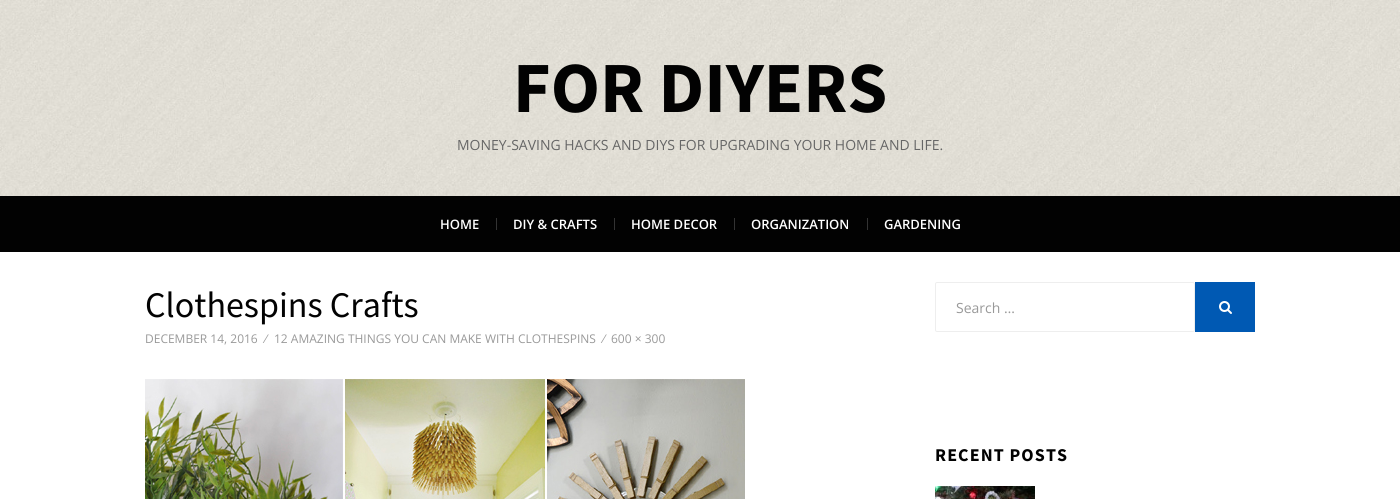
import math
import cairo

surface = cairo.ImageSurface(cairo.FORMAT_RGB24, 1400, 499)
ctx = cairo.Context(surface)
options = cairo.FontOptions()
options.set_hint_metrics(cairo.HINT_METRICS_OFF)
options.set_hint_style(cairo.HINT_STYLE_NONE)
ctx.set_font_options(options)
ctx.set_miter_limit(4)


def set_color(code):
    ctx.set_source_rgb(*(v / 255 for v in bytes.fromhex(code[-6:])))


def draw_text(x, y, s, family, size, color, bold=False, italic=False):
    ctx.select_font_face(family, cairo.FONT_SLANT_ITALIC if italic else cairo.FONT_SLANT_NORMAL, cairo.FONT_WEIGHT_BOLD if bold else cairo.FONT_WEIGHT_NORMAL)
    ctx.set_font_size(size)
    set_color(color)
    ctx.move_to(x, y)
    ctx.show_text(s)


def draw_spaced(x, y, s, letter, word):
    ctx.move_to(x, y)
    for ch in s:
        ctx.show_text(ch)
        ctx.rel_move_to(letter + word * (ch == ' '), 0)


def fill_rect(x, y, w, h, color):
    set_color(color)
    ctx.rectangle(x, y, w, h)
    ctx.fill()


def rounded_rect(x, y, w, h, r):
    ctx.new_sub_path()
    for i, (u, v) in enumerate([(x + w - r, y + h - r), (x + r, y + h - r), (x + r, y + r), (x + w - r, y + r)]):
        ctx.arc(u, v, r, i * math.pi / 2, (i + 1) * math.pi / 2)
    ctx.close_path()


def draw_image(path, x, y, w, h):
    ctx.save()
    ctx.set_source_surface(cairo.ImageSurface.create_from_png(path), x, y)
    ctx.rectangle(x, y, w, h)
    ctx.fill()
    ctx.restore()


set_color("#ffffff")
ctx.paint()
draw_image("assets/img1.png", 0, 0, 1400, 196)
draw_text(513, 112, "FOR DIYERS", "Source Sans Pro", 72, "#020202", bold=True)
draw_text(457, 150, "MONEY-SAVING HACKS AND DIYS FOR UPGRADING YOUR HOME AND LIFE.", "Open Sans", 14, "#666666")
fill_rect(0, 196, 1400, 56, "#020202")
draw_text(440, 229, "HOME", "Open Sans SemiBold", 13, "#ffffff")
fill_rect(496, 218, 1, 12, "#333333")
draw_text(513, 229, "DIY & CRAFTS", "Open Sans SemiBold", 13, "#ffffff")
fill_rect(614, 218, 1, 12, "#333333")
draw_text(631, 229, "HOME DECOR", "Open Sans SemiBold", 13, "#ffffff")
fill_rect(734, 218, 1, 12, "#333333")
draw_text(751, 229, "ORGANIZATION", "Open Sans SemiBold", 13, "#ffffff")
fill_rect(867, 218, 1, 12, "#333333")
draw_text(884, 229, "GARDENING", "Open Sans SemiBold", 13, "#ffffff")
draw_text(145, 317, "Clothespins Crafts", "Source Sans Pro", 36, "#020202")
draw_text(145, 343, "DECEMBER 14, 2016", "Open Sans", 12, "#999999")
draw_text(265, 343, "⁄", "Open Sans", 12, "#999999")
draw_text(274, 343, "12 AMAZING THINGS YOU CAN MAKE WITH CLOTHESPINS", "Open Sans", 12, "#999999")
draw_text(603, 343, "⁄", "Open Sans", 12, "#999999")
draw_text(611, 343, "600 × 300", "Open Sans", 12, "#999999")
draw_image("assets/img2.png", 145, 379, 600, 120)
rounded_rect(935.5, 282.5, 259, 49, 1.5)
set_color("#eeeeee")
ctx.set_line_width(1)
ctx.stroke()
draw_text(956, 313, "Search …", "Open Sans", 14, "#999999")
fill_rect(1195, 282, 60, 50, "#0059b3")
draw_image("assets/img3.png", 1219, 301, 13, 13)
ctx.select_font_face("Source Sans Pro", cairo.FONT_SLANT_NORMAL, cairo.FONT_WEIGHT_BOLD)
ctx.set_font_size(18)
set_color("#020202")
draw_spaced(935, 461, "RECENT POSTS", 1.1, 0)
draw_image("assets/img4.png", 935, 486, 100, 13)
surface.write_to_png("output.png")
